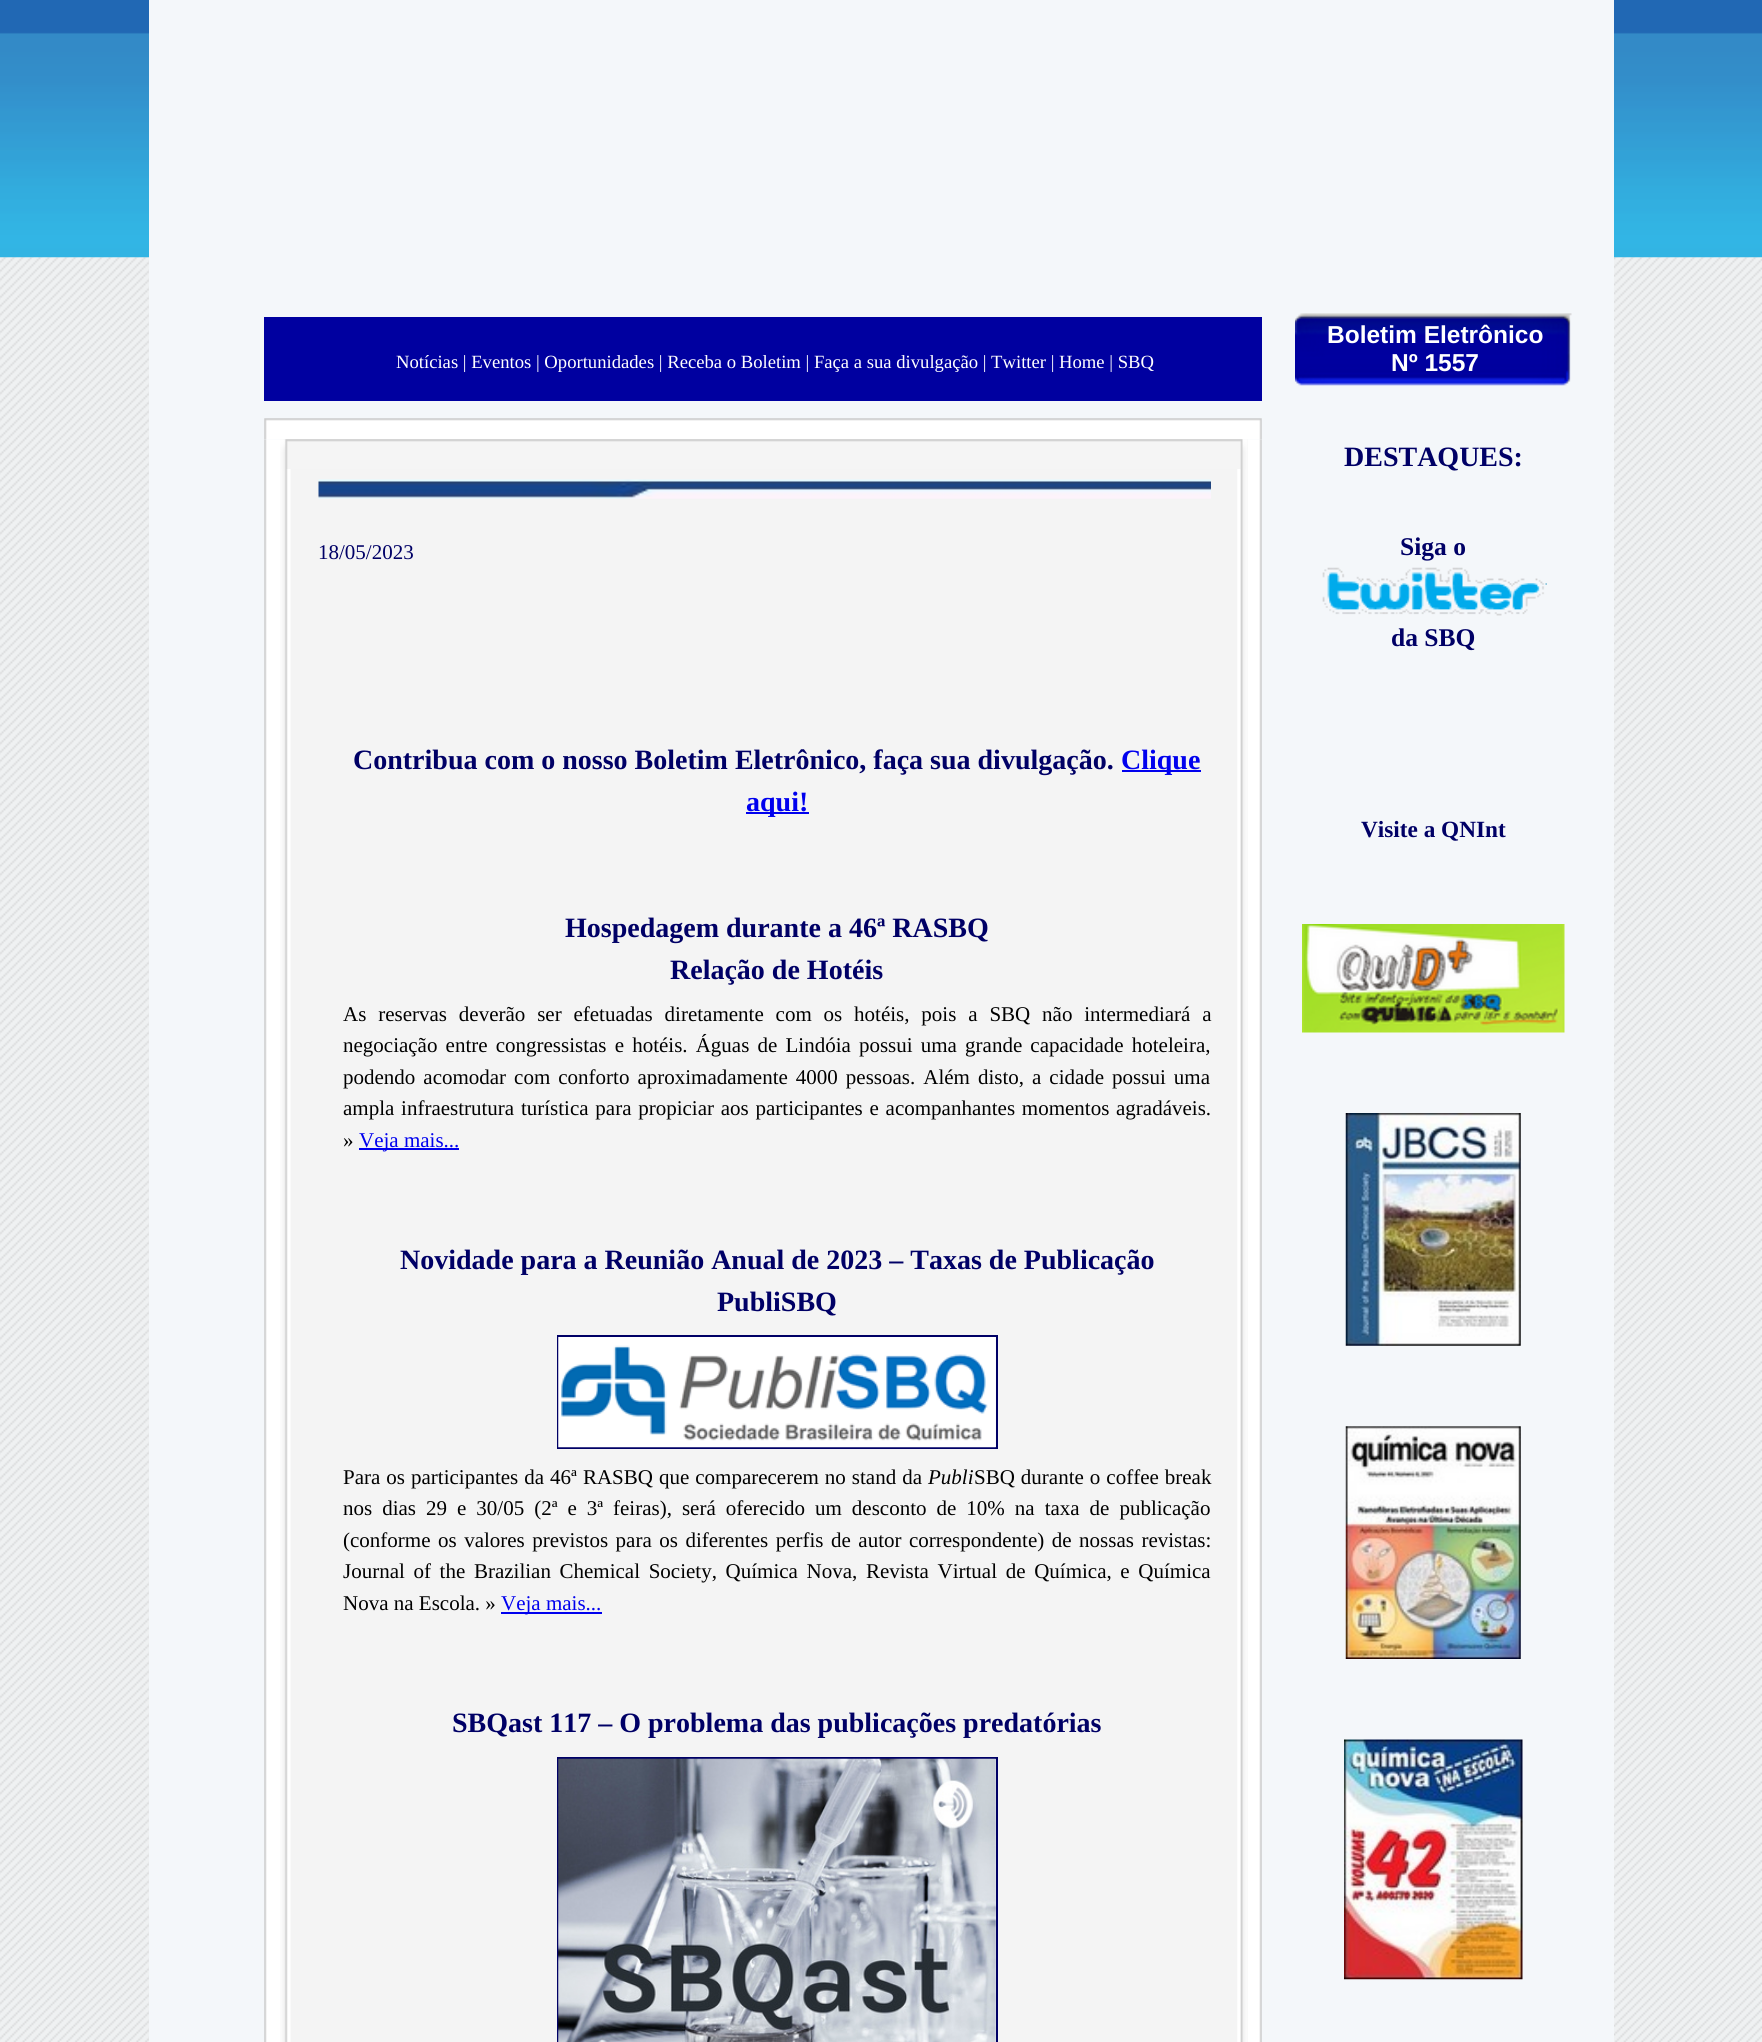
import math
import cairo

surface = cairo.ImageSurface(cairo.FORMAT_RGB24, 1762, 2042)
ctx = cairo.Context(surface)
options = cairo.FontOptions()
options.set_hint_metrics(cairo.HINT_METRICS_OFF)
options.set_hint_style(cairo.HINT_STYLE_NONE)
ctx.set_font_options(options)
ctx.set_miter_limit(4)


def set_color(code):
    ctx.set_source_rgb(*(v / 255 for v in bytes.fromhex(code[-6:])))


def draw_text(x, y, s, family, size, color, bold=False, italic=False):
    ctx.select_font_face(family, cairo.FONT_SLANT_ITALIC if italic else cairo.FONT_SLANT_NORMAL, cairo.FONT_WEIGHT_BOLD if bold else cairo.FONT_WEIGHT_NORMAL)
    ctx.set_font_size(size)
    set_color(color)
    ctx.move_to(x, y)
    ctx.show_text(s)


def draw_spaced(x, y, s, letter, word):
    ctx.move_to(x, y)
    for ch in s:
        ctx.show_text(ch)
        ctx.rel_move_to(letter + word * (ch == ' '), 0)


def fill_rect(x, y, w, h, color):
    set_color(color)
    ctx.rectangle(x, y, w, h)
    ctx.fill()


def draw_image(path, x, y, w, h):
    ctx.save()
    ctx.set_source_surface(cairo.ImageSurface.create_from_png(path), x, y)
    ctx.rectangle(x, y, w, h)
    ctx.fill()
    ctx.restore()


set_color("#ffffff")
ctx.paint()
draw_image("assets/img1.png", 0, 257, 1762, 1785)
draw_image("assets/img2.png", 0, 0, 1762, 258)
fill_rect(149, 0, 1465, 2042, "#f4f7fa")
fill_rect(264, 317, 998, 84, "#0000a0")
draw_text(396, 368, "Notícias | Eventos | Oportunidades | Receba o Boletim | Faça a sua divulgação | Twitter | Home | SBQ", "Liberation Serif", 18.65, "#ffffff")
draw_image("assets/img3.png", 264, 418, 998, 21)
draw_image("assets/img4.png", 264, 439, 998, 1603)
fill_rect(280, 439, 968, 1603, "#f4f4f4")
draw_image("assets/img5.png", 280, 439, 968, 30)
draw_image("assets/img6.png", 280, 469, 11, 1573)
draw_image("assets/img7.png", 318, 479, 893, 20)
draw_text(318, 559, "18/05/2023", "Liberation Serif", 21, "#000066")
draw_text(353, 769, "Contribua com o nosso Boletim Eletrônico, faça sua divulgação.", "Liberation Serif", 28, "#000066", bold=True)
fill_rect(1122, 770, 79, 2, "#0000ee")
draw_text(1121, 769, "Clique", "Liberation Serif", 28, "#0000ee", bold=True)
fill_rect(746, 812, 63, 2, "#0000ee")
draw_text(746, 811, "aqui!", "Liberation Serif", 28, "#0000ee", bold=True)
draw_text(565, 937, "Hospedagem durante a 46ª RASBQ", "Liberation Serif", 28, "#000066", bold=True)
draw_text(670, 979, "Relação de Hotéis", "Liberation Serif", 28, "#000066", bold=True)
ctx.select_font_face("Liberation Serif")
ctx.set_font_size(21)
set_color("#000000")
draw_spaced(343, 1021, "As reservas deverão ser efetuadas diretamente com os hotéis, pois a SBQ não intermediará a", 0, 6.6)
draw_spaced(343, 1052, "negociação entre congressistas e hotéis. Águas de Lindóia possui uma grande capacidade hoteleira,", 0, 2.9)
draw_spaced(343, 1084, "podendo acomodar com conforto aproximadamente 4000 pessoas. Além disto, a cidade possui uma", 0, 2.75)
draw_spaced(343, 1115, "ampla infraestrutura turística para propiciar aos participantes e acompanhantes momentos agradáveis.", 0, 1.5)
draw_text(343, 1147, "»", "Liberation Serif", 21, "#000000")
fill_rect(359, 1148, 100, 2, "#0000ee")
draw_text(359, 1147, "Veja mais...", "Liberation Serif", 21, "#0000ee")
draw_text(400, 1269, "Novidade para a Reunião Anual de 2023 – Taxas de Publicação", "Liberation Serif", 28, "#000066", bold=True)
draw_text(717, 1311, "PubliSBQ", "Liberation Serif", 28, "#000066", bold=True)
ctx.rectangle(558, 1336, 439, 112)
ctx.stroke()
draw_image("assets/img8.png", 558, 1337, 438, 111)
ctx.select_font_face("Liberation Serif")
ctx.set_font_size(21)
set_color("#000000")
draw_spaced(343, 1484, "Para os participantes da 46ª RASBQ que comparecerem no stand da", 0, 0.75)
draw_text(928, 1484, "Publi", "Liberation Serif", 21, "#000000", italic=True)
ctx.select_font_face("Liberation Serif")
draw_spaced(974, 1484, "SBQ durante o coffee break", 0, 0.75)
draw_spaced(343, 1515, "nos dias 29 e 30/05 (2ª e 3ª feiras), será oferecido um desconto de 10% na taxa de publicação", 0, 4.75)
draw_spaced(343, 1547, "(conforme os valores previstos para os diferentes perfis de autor correspondente) de nossas revistas:", 0, 2.25)
draw_spaced(343, 1578, "Journal of the Brazilian Chemical Society, Química Nova, Revista Virtual de Química, e Química", 0, 3.4)
draw_text(343, 1610, "Nova na Escola. »", "Liberation Serif", 21, "#000000")
fill_rect(501, 1612, 101, 2, "#0000ee")
draw_text(501, 1610, "Veja mais...", "Liberation Serif", 21, "#0000ee")
draw_text(452, 1732, "SBQast 117 – O problema das publicações predatórias", "Liberation Serif", 28, "#000066", bold=True)
ctx.rectangle(558, 1758, 439, 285)
ctx.stroke()
draw_image("assets/img9.png", 558, 1758, 438, 284)
draw_image("assets/img10.png", 1237, 469, 11, 1573)
draw_image("assets/img11.png", 1295, 313, 277, 73)
draw_text(1327, 343, "Boletim Eletrônico", "Liberation Sans", 24.5, "#ffffff", bold=True)
draw_text(1391, 371, "Nº 1557", "Liberation Sans", 24.5, "#ffffff", bold=True)
draw_text(1344, 466, "DESTAQUES:", "Liberation Serif", 28, "#000066", bold=True)
draw_text(1400, 555, "Siga o", "Liberation Serif", 25.5, "#000066", bold=True)
draw_image("assets/img12.png", 1322, 567, 225, 49)
draw_text(1391, 646, "da SBQ", "Liberation Serif", 25.5, "#000066", bold=True)
draw_text(1361, 837, "Visite a QNInt", "Liberation Serif", 23.25, "#000066", bold=True)
draw_image("assets/img13.png", 1302, 924, 263, 109)
draw_image("assets/img14.png", 1345, 1113, 176, 233)
draw_image("assets/img15.png", 1345, 1426, 176, 233)
draw_image("assets/img16.png", 1344, 1739, 179, 241)
surface.write_to_png("output.png")
